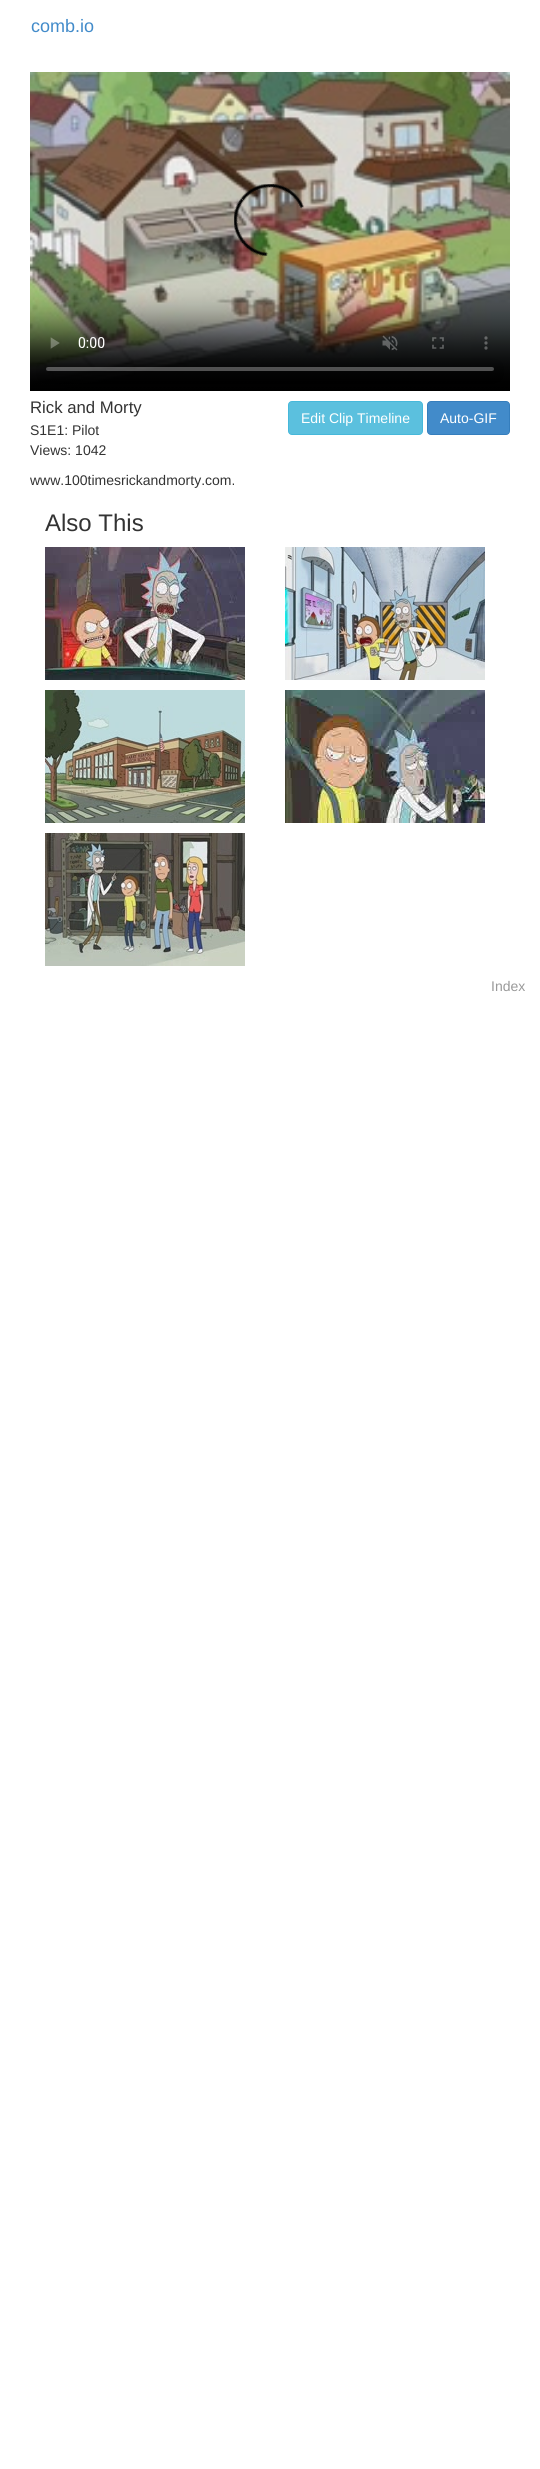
import math
import cairo

surface = cairo.ImageSurface(cairo.FORMAT_RGB24, 540, 2469)
ctx = cairo.Context(surface)
options = cairo.FontOptions()
options.set_hint_metrics(cairo.HINT_METRICS_OFF)
options.set_hint_style(cairo.HINT_STYLE_NONE)
ctx.set_font_options(options)
ctx.set_miter_limit(4)


def set_color(code):
    ctx.set_source_rgb(*(v / 255 for v in bytes.fromhex(code[-6:])))


def draw_text(x, y, s, family, size, color, bold=False, italic=False):
    ctx.select_font_face(family, cairo.FONT_SLANT_ITALIC if italic else cairo.FONT_SLANT_NORMAL, cairo.FONT_WEIGHT_BOLD if bold else cairo.FONT_WEIGHT_NORMAL)
    ctx.set_font_size(size)
    set_color(color)
    ctx.move_to(x, y)
    ctx.show_text(s)


def rounded_rect(x, y, w, h, r):
    ctx.new_sub_path()
    for i, (u, v) in enumerate([(x + w - r, y + h - r), (x + r, y + h - r), (x + r, y + r), (x + w - r, y + r)]):
        ctx.arc(u, v, r, i * math.pi / 2, (i + 1) * math.pi / 2)
    ctx.close_path()


def draw_image(path, x, y, w, h):
    ctx.save()
    ctx.set_source_surface(cairo.ImageSurface.create_from_png(path), x, y)
    ctx.rectangle(x, y, w, h)
    ctx.fill()
    ctx.restore()


set_color("#ffffff")
ctx.paint()
draw_text(31, 32, "comb.io", "Liberation Sans", 18, "#428bca")
draw_image("assets/img1.png", 30, 72, 480, 319)
draw_text(30, 413, "Rick and Morty", "Liberation Sans", 16.75, "#333333")
draw_text(30, 435, "S1E1: Pilot", "Liberation Sans", 14, "#333333")
draw_text(30, 455, "Views: 1042", "Liberation Sans", 14, "#333333")
draw_text(30, 485, "www.100timesrickandmorty.com.", "Liberation Sans", 14, "#333333")
set_color("#5bc0de")
rounded_rect(288.5, 401.5, 134, 33, 3.5)
ctx.fill_preserve()
set_color("#46b8da")
ctx.set_line_width(1)
ctx.stroke()
draw_text(301, 423, "Edit Clip Timeline", "Liberation Sans", 14, "#ffffff")
set_color("#428bca")
rounded_rect(427.5, 401.5, 82, 33, 3.5)
ctx.fill_preserve()
set_color("#357ebd")
ctx.stroke()
draw_text(440, 423, "Auto-GIF", "Liberation Sans", 14, "#ffffff")
draw_text(45, 531, "Also This", "Liberation Sans", 24, "#333333")
draw_image("assets/img2.png", 45, 547, 200, 133)
draw_image("assets/img3.png", 285, 547, 200, 133)
draw_image("assets/img4.png", 45, 690, 200, 133)
draw_image("assets/img5.png", 285, 690, 200, 133)
draw_image("assets/img6.png", 45, 833, 200, 133)
draw_text(491, 991, "Index", "Liberation Sans", 14, "#999999")
surface.write_to_png("output.png")
